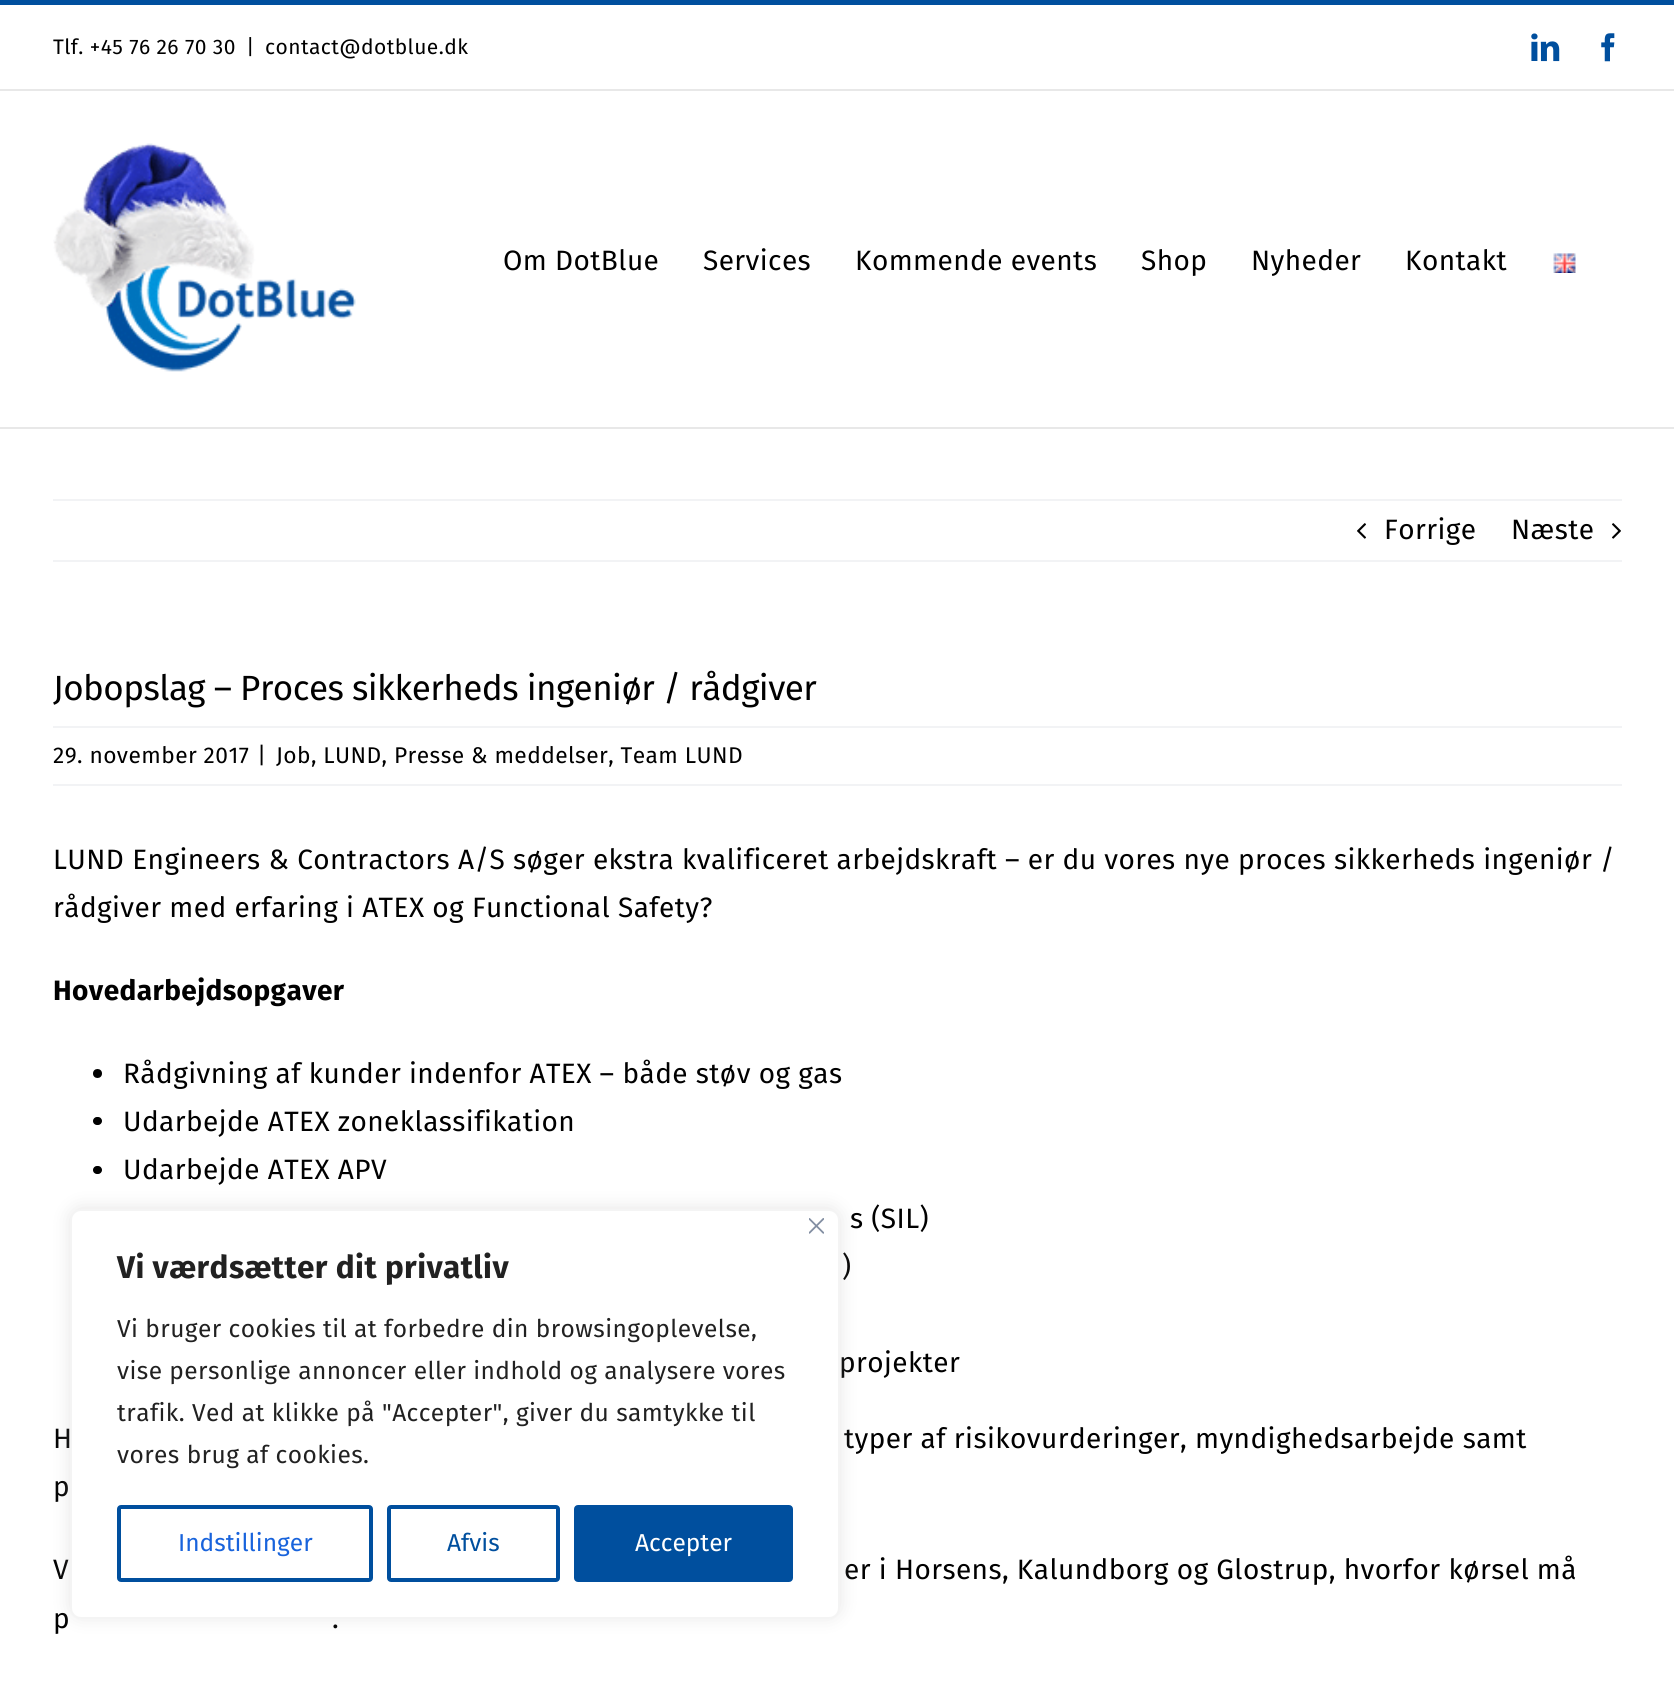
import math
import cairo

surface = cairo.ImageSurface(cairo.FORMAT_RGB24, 1674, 1688)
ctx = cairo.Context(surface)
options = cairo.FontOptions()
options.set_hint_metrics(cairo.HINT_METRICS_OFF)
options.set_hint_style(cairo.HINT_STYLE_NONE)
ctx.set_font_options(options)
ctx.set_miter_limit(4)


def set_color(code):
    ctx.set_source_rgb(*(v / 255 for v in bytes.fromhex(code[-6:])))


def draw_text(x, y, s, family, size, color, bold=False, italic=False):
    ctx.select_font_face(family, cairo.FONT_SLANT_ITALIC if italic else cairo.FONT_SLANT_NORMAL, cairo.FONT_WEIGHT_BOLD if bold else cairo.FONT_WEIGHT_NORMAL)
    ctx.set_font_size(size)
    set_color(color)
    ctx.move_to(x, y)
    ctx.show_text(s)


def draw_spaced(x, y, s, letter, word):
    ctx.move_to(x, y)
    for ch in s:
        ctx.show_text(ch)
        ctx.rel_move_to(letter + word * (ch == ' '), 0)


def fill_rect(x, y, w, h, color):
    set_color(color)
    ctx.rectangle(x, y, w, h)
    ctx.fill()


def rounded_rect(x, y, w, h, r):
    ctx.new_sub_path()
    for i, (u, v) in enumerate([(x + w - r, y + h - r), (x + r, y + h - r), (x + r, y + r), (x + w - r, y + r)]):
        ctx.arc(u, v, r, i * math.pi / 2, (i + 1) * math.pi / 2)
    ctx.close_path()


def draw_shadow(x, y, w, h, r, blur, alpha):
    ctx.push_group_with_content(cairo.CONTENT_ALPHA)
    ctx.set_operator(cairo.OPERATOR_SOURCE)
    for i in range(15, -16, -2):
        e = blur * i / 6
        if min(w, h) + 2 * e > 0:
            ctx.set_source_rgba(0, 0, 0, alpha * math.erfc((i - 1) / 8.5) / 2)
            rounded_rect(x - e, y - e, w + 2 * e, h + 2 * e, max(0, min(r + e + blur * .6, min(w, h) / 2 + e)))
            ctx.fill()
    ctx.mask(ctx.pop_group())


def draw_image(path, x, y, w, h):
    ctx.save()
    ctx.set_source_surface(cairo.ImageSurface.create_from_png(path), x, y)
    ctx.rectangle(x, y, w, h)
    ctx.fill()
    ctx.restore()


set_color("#ffffff")
ctx.paint()
fill_rect(0, 0, 1674, 5, "#004f9e")
fill_rect(0, 89, 1674, 2, "#e8e8e8")
ctx.select_font_face("Fira Sans")
ctx.set_font_size(21)
set_color("#000000")
draw_spaced(53, 54, "Tlf. +45 76 26 70 30", 0.42, 0)
draw_spaced(246, 54, "|", 0.42, 0)
draw_spaced(265, 54, "contact@dotblue.dk", 0.42, 0)
draw_image("assets/img1.png", 1531, 33, 29, 29)
draw_image("assets/img2.png", 1601, 33, 14, 29)
fill_rect(0, 427, 1674, 2, "#e8e8e8")
draw_image("assets/img3.png", 53, 143, 303, 229)
ctx.set_font_size(28)
set_color("#000000")
draw_spaced(503, 270, "Om DotBlue", 0.42, 0)
draw_spaced(703, 270, "Services", 0.42, 0)
draw_spaced(855, 270, "Kommende events", 0.42, 0)
draw_spaced(1141, 270, "Shop", 0.42, 0)
draw_spaced(1251, 270, "Nyheder", 0.42, 0)
draw_spaced(1405, 270, "Kontakt", 0.42, 0)
draw_image("assets/img4.png", 1553, 253, 23, 20)
fill_rect(53, 499, 1569, 2, "#f2f3f5")
fill_rect(53, 560, 1569, 2, "#f2f3f5")
draw_image("assets/img5.png", 1357, 523, 9, 16)
set_color("#000000")
draw_spaced(1384, 539, "Forrige", 0.42, 0)
draw_spaced(1511, 539, "Næste", 0.42, 0)
draw_image("assets/img6.png", 1612, 523, 9, 16)
ctx.set_font_size(35)
draw_spaced(53, 700, "Jobopslag – Proces sikkerheds ingeniør / rådgiver", -0.55, 0)
fill_rect(53, 726, 1569, 2, "#f2f3f5")
fill_rect(53, 784, 1569, 2, "#f2f3f5")
ctx.set_font_size(22.75)
set_color("#000000")
draw_spaced(53, 763, "29. november 2017", 0.42, 0)
draw_spaced(257, 763, "|", 0.42, 0)
draw_spaced(276, 763, "Job, LUND, Presse & meddelser, Team LUND", 0.42, 0)
ctx.set_font_size(28)
draw_spaced(53, 869, "LUND Engineers & Contractors A/S søger ekstra kvalificeret arbejdskraft – er du vores nye proces sikkerheds ingeniør /", 0.42, 0)
draw_spaced(53, 917, "rådgiver med erfaring i ATEX og Functional Safety?", 0.42, 0)
ctx.select_font_face("Fira Sans", cairo.FONT_SLANT_NORMAL, cairo.FONT_WEIGHT_BOLD)
draw_spaced(53, 1000, "Hovedarbejdsopgaver", 0.42, 0)
ctx.new_path()
ctx.arc(97.5, 1073.5, 4.5, 0, 2 * math.pi)
ctx.fill()
ctx.select_font_face("Fira Sans")
draw_spaced(123, 1083, "Rådgivning af kunder indenfor ATEX – både støv og gas", 0.42, 0)
rounded_rect(93, 1117, 9, 8, 4)
ctx.fill()
draw_spaced(123, 1131, "Udarbejde ATEX zoneklassifikation", 0.42, 0)
rounded_rect(93, 1166, 9, 8, 4)
ctx.fill()
draw_spaced(123, 1179, "Udarbejde ATEX APV", 0.42, 0)
draw_spaced(850, 1228, "s (SIL)", 0.42, 0)
draw_spaced(842, 1276, ")", 0.42, 0)
draw_spaced(839, 1372, "projekter", 0.42, 0)
draw_spaced(53, 1448, "H", 0.42, 0)
draw_spaced(844, 1448, "typer af risikovurderinger, myndighedsarbejde samt", 0.42, 0)
draw_spaced(53, 1496, "p", 0.42, 0)
draw_spaced(53, 1579, "V", 0.42, 0)
draw_spaced(844, 1579, "er i Horsens, Kalundborg og Glostrup, hvorfor kørsel må", 0.42, 0)
draw_spaced(53, 1628, "p", 0.42, 0)
draw_spaced(332, 1628, ".", 0.42, 0)
set_color("#acabab")
draw_shadow(70, 1208, 770, 409, 11, 9, 0.3)
set_color("#ffffff")
rounded_rect(71, 1210, 768, 408, 10)
ctx.fill_preserve()
set_color("#f4f4f4")
ctx.stroke()
draw_image("assets/img7.png", 809, 1218, 15, 16)
ctx.select_font_face("Fira Sans", cairo.FONT_SLANT_NORMAL, cairo.FONT_WEIGHT_BOLD)
ctx.set_font_size(31.5)
set_color("#212121")
draw_spaced(117, 1278, "Vi værdsætter dit privatliv", 0.42, 0)
ctx.select_font_face("Fira Sans")
ctx.set_font_size(24.5)
draw_spaced(117, 1337, "Vi bruger cookies til at forbedre din browsingoplevelse,", 0.42, 0)
draw_spaced(117, 1379, "vise personlige annoncer eller indhold og analysere vores", 0.42, 0)
draw_spaced(117, 1421, "trafik. Ved at klikke på \"Accepter\", giver du samtykke til", 0.42, 0)
draw_spaced(117, 1463, "vores brug af cookies.", 0.42, 0)
rounded_rect(119, 1507, 252, 73, 2)
set_color("#004f9e")
ctx.set_line_width(4)
ctx.stroke()
draw_text(178, 1551, "Indstillinger", "Fira Sans", 24.5, "#1863dc")
rounded_rect(389, 1507, 169, 73, 2)
set_color("#004f9e")
ctx.stroke()
draw_text(447, 1551, "Afvis", "Fira Sans", 24.5, "#004f9e")
rounded_rect(576, 1507, 215, 73, 2)
ctx.fill_preserve()
ctx.stroke()
draw_text(635, 1551, "Accepter", "Fira Sans", 24.5, "#ffffff")
surface.write_to_png("output.png")
